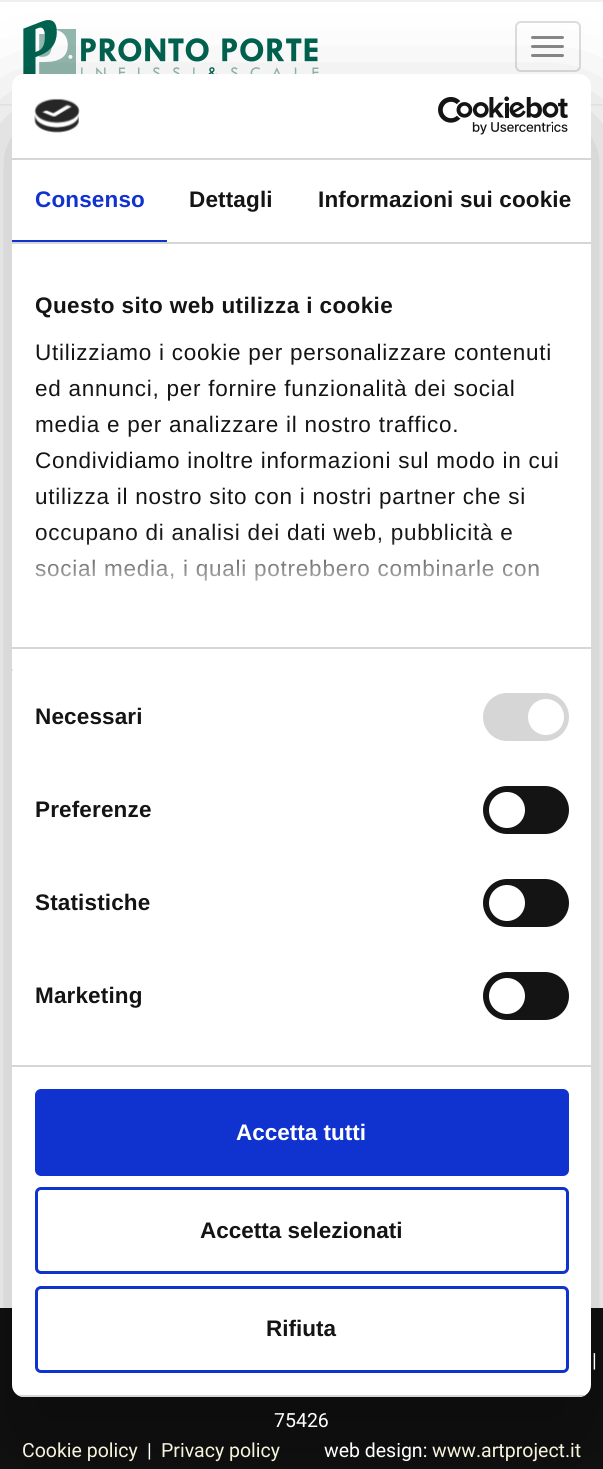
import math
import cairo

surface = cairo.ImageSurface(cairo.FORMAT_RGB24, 603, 1469)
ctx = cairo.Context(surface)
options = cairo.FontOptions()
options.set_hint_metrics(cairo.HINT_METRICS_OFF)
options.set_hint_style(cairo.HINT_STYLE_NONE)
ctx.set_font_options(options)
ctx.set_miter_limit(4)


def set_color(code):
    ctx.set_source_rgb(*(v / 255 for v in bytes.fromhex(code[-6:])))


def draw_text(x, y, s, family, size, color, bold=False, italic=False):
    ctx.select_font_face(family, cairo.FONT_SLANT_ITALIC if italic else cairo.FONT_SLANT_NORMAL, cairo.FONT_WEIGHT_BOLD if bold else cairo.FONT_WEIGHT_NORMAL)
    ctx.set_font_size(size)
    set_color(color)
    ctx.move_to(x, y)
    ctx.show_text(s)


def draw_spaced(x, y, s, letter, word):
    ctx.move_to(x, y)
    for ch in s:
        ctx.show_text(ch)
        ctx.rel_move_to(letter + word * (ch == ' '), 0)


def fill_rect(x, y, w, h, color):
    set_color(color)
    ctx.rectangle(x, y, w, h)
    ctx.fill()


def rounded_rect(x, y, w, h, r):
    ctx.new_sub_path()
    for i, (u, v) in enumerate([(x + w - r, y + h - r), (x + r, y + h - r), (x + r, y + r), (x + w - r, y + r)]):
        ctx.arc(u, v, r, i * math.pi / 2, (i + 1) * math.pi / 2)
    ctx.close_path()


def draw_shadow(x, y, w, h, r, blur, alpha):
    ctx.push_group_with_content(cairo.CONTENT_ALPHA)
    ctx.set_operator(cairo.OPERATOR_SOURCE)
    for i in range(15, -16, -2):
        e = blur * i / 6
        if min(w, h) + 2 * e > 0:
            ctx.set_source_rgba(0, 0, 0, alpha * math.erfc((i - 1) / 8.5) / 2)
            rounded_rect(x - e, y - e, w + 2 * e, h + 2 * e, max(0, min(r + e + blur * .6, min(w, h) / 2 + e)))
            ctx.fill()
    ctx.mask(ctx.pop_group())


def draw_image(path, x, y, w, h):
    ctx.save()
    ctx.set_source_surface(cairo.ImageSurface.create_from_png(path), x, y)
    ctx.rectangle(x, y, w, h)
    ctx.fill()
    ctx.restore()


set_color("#ffffff")
ctx.paint()
set_color("#dddddd")
draw_shadow(0, 0, 603, 104, 0, 1.5, 1)
fill_rect(0, 2, 603, 102, "#ffffff")
fill_rect(0, 0, 603, 2, "#f0f0f0")
draw_image("assets/img3.png", 23, 20, 296, 55)
rounded_rect(516, 22, 64, 49, 5)
set_color("#dddddd")
ctx.stroke()
set_color("#888888")
rounded_rect(531, 36, 33, 3, 1.5)
ctx.fill()
rounded_rect(531, 45, 33, 3, 1.5)
ctx.fill()
rounded_rect(531, 54, 33, 3, 1.5)
ctx.fill()
fill_rect(0, 1308, 603, 161, "#111111")
set_color("#000000")
draw_shadow(12, 122, 579, 1323, 12, 51, 0.3)
set_color("#ffffff")
rounded_rect(12, 74, 579, 1323, 12)
ctx.fill()
fill_rect(12, 158, 579, 2, "#d6d6d6")
draw_image("assets/img1.png", 34, 98, 46, 35)
draw_image("assets/img2.png", 438, 96, 130, 39)
fill_rect(12, 242, 579, 2, "#d6d6d6")
fill_rect(12, 240, 155, 2, "#1032cf")
ctx.select_font_face("Liberation Sans", cairo.FONT_SLANT_NORMAL, cairo.FONT_WEIGHT_BOLD)
ctx.set_font_size(22.5)
draw_spaced(35, 207, "Consenso", 0.15, 0)
set_color("#141414")
draw_spaced(189, 207, "Dettagli", 0.15, 0)
draw_spaced(318, 207, "Informazioni sui cookie", 0.15, 0)
fill_rect(12, 647, 579, 2, "#d6d6d6")
set_color("#141414")
draw_spaced(35, 313, "Questo sito web utilizza i cookie", 0.4, 0)
ctx.select_font_face("Liberation Sans")
draw_spaced(35, 360, "Utilizziamo i cookie per personalizzare contenuti", 0.75, 0)
draw_spaced(35, 396, "ed annunci, per fornire funzionalità dei social", 0.75, 0)
draw_spaced(35, 432, "media e per analizzare il nostro traffico.", 0.75, 0)
draw_spaced(35, 468, "Condividiamo inoltre informazioni sul modo in cui", 0.75, 0)
draw_spaced(35, 504, "utilizza il nostro sito con i nostri partner che si", 0.75, 0)
draw_spaced(35, 540, "occupano di analisi dei dati web, pubblicità e", 0.75, 0)
draw_spaced(35, 576, "social media, i quali potrebbero combinarle con", 0.75, 0)
gradient = cairo.LinearGradient(292, 647, 292, 534)
gradient.add_color_stop_rgba(0, 1, 1, 1, 1)
gradient.add_color_stop_rgba(0.5, 1, 1, 1, 0.8)
gradient.add_color_stop_rgba(1, 1, 1, 1, 0)
ctx.set_source(gradient)
ctx.rectangle(35, 536, 503, 45)
ctx.fill()
fill_rect(12, 1065, 579, 2, "#d6d6d6")
fill_rect(12, 669, 1, 2, "#e5e5e5")
ctx.select_font_face("Liberation Sans", cairo.FONT_SLANT_NORMAL, cairo.FONT_WEIGHT_BOLD)
set_color("#141414")
draw_spaced(35, 724, "Necessari", 0.15, 0)
set_color("#d6d6d6")
rounded_rect(483, 693, 86, 48, 24)
ctx.fill()
set_color("#ffffff")
ctx.arc(546, 717, 18, 0, 2 * math.pi)
ctx.fill()
set_color("#141414")
draw_spaced(35, 817, "Preferenze", 0.15, 0)
rounded_rect(483, 786, 86, 48, 24)
ctx.fill()
set_color("#ffffff")
ctx.arc(507, 810, 18, 0, 2 * math.pi)
ctx.fill()
set_color("#141414")
draw_spaced(35, 910, "Statistiche", 0.15, 0)
rounded_rect(483, 879, 86, 48, 24)
ctx.fill()
set_color("#ffffff")
ctx.arc(507, 903, 18, 0, 2 * math.pi)
ctx.fill()
set_color("#141414")
draw_spaced(35, 1003, "Marketing", 0.15, 0)
rounded_rect(483, 972, 86, 48, 24)
ctx.fill()
set_color("#ffffff")
ctx.arc(507, 996, 18, 0, 2 * math.pi)
ctx.fill()
ctx.save()
rounded_rect(12, 74, 579, 1323, 12)
ctx.clip()
fill_rect(12, 1395, 579, 2, "#d6d6d6")
ctx.restore()
set_color("#1032cf")
rounded_rect(36.5, 1090.5, 531, 84, 4.5)
ctx.fill_preserve()
ctx.set_line_width(3)
ctx.stroke()
draw_text(236, 1140, "Accetta tutti", "Liberation Sans", 22.5, "#ffffff", bold=True)
rounded_rect(36.5, 1188.5, 531, 84, 4.5)
set_color("#1032cf")
ctx.stroke()
draw_text(200, 1238, "Accetta selezionati", "Liberation Sans", 22.5, "#141414", bold=True)
rounded_rect(36.5, 1287.5, 531, 84, 4.5)
set_color("#1032cf")
ctx.stroke()
draw_text(266, 1336, "Rifiuta", "Liberation Sans", 22.5, "#141414", bold=True)
draw_text(592, 1367, "|", "Roboto", 19.5, "#ffffff")
draw_text(274, 1427, "75426", "Roboto", 19.5, "#ffffff")
draw_text(22, 1457, "Cookie policy", "Roboto", 19.5, "#f6f3dd")
draw_text(147, 1457, "|", "Roboto", 19.5, "#ffffff")
draw_text(161, 1457, "Privacy policy", "Roboto", 19.5, "#f6f3dd")
draw_text(324, 1457, "web design:", "Roboto", 19.5, "#ffffff")
draw_text(432, 1457, "www.artproject.it", "Roboto", 19.5, "#f6f3dd")
surface.write_to_png("output.png")
